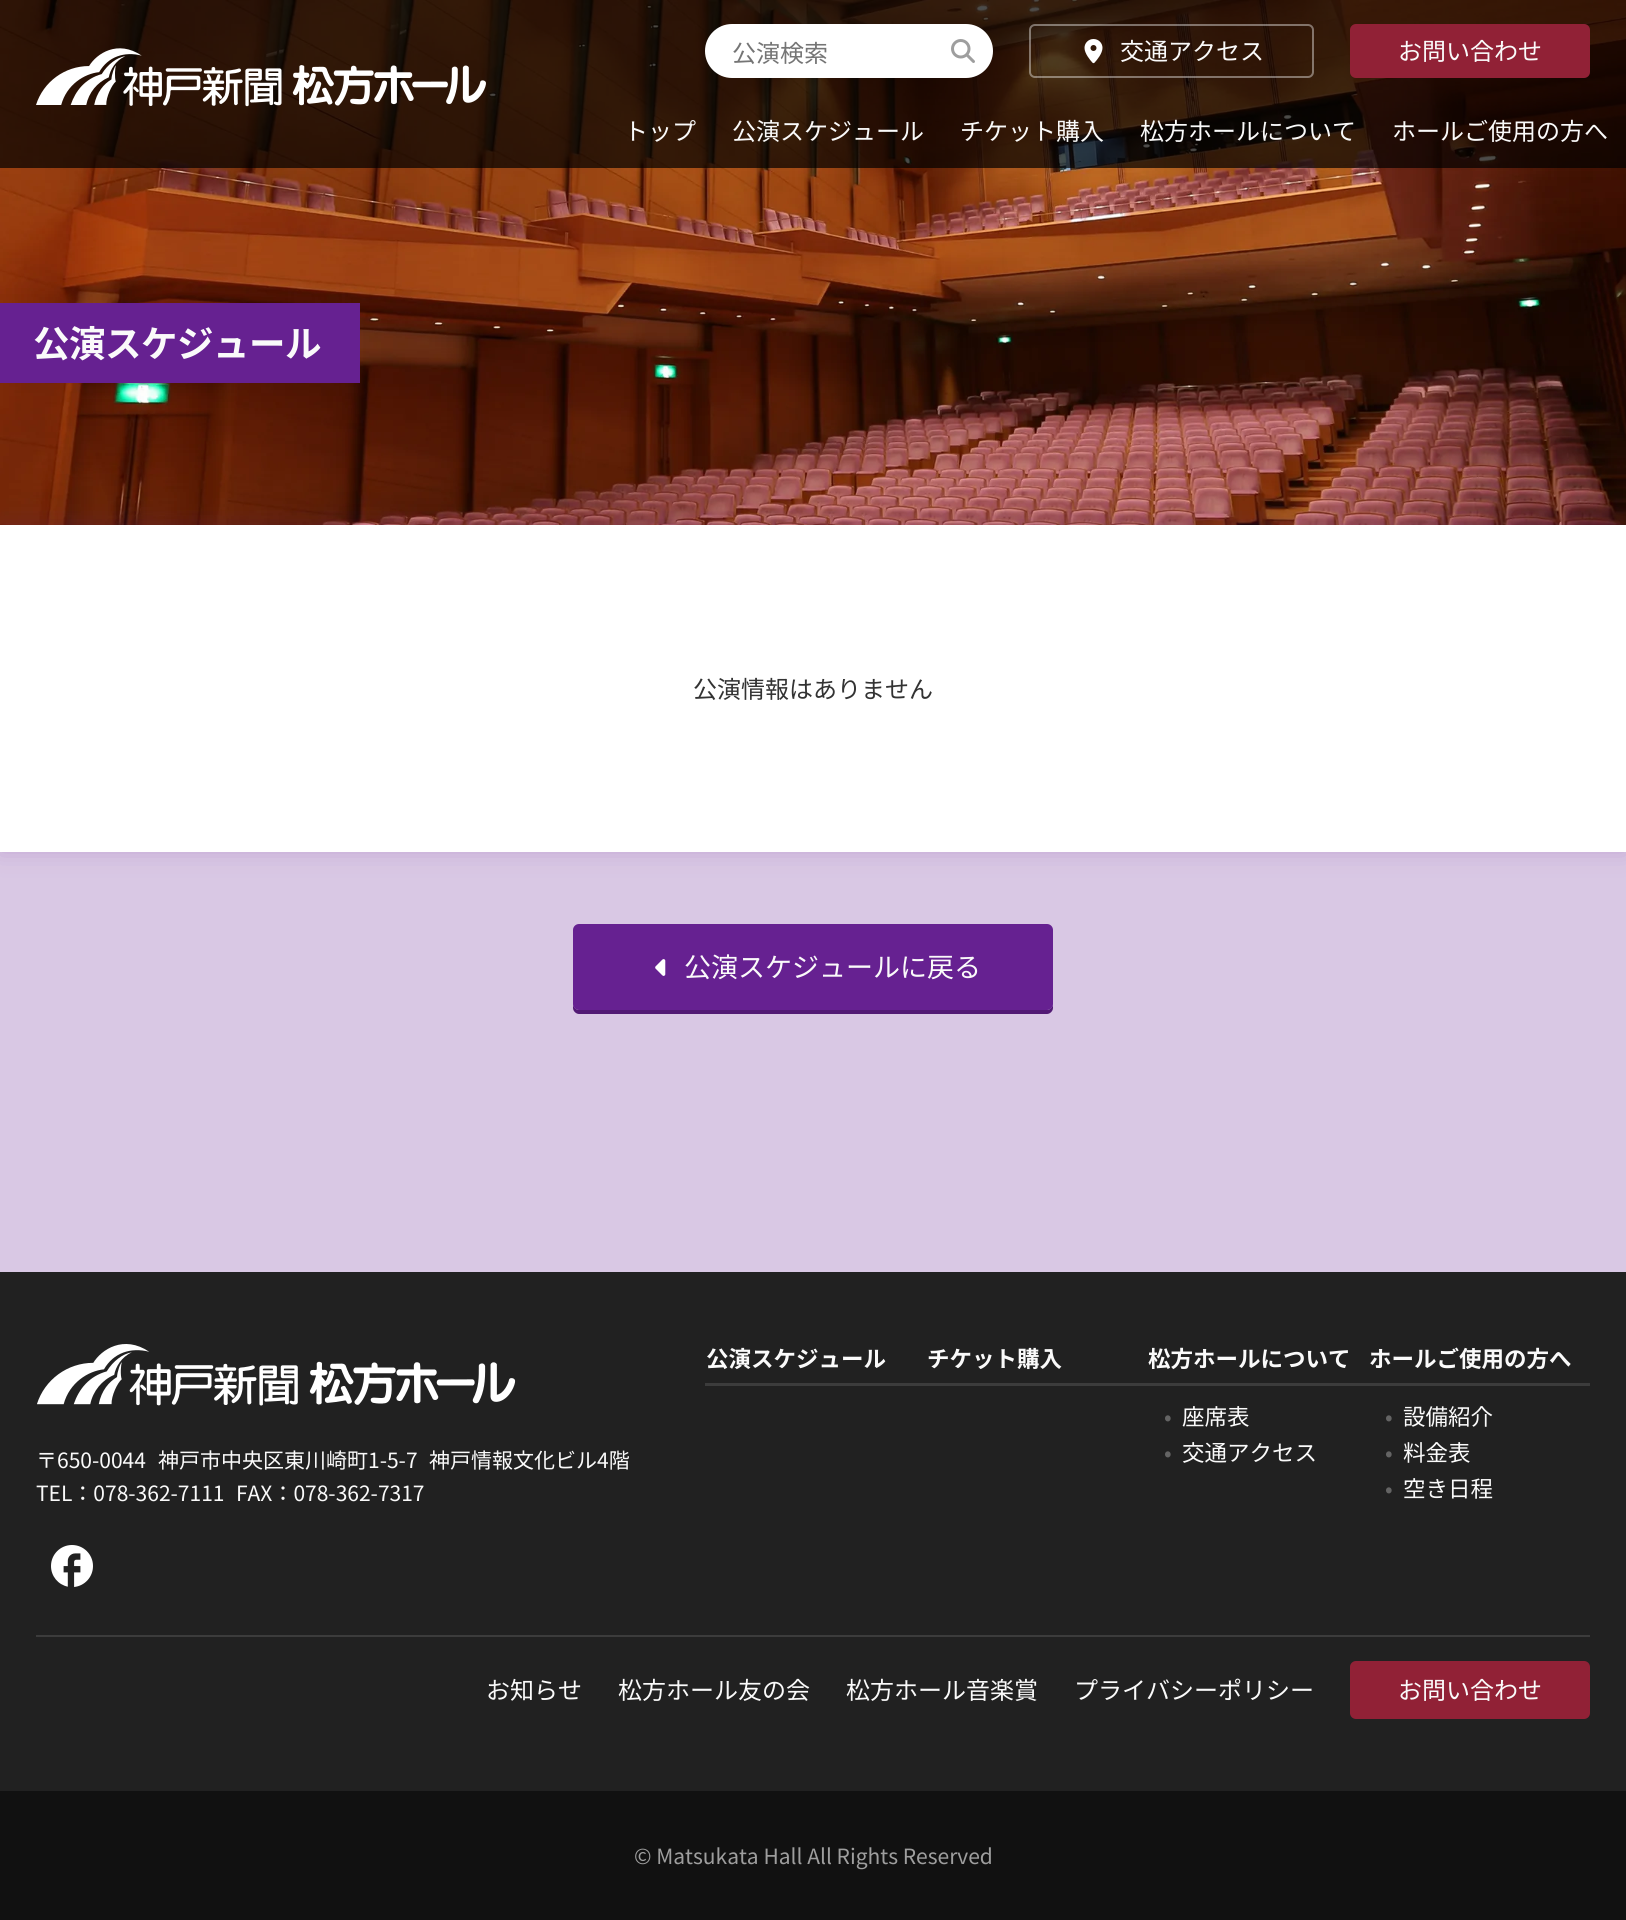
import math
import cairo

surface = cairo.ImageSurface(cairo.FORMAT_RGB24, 1626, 1920)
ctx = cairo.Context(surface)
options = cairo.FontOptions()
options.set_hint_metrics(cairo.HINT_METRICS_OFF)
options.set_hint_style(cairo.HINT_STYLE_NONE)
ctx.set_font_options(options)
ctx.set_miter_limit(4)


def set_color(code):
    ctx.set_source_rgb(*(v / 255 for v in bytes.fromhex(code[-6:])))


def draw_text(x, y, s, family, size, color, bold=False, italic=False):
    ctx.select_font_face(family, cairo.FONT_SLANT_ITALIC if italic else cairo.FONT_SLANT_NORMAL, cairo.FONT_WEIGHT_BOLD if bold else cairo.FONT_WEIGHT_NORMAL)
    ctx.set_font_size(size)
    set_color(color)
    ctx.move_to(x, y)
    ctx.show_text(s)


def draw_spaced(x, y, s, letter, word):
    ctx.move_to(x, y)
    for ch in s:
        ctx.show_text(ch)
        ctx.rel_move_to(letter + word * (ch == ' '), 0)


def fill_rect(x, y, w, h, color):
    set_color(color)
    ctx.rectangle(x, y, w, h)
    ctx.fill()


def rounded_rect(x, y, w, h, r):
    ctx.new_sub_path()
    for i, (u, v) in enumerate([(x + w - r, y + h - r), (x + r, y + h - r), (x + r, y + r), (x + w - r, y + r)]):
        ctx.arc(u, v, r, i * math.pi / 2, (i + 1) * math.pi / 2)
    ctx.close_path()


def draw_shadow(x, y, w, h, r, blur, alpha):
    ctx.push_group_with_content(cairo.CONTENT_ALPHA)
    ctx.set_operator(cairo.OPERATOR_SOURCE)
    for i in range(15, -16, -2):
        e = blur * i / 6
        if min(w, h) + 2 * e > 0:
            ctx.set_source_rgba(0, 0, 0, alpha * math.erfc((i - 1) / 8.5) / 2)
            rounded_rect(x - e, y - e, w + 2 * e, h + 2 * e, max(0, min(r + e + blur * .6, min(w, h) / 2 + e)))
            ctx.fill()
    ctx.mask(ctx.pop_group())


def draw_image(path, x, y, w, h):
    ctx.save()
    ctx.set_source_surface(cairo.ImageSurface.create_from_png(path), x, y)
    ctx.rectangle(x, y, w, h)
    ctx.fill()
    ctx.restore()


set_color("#212121")
ctx.paint()
draw_image("assets/img4.png", 0, 0, 1626, 525)
ctx.set_source_rgba(0, 0, 0, 0.7)
ctx.rectangle(0, 0, 1626, 168)
ctx.fill()
draw_image("assets/img1.png", 36, 48, 450, 59)
set_color("#ffffff")
rounded_rect(705, 24, 288, 54, 27)
ctx.fill()
draw_text(732, 62, "公演検索", "Noto Sans JP", 24, "#757575")
draw_image("assets/img2.png", 951, 39, 24, 24)
rounded_rect(1030, 25, 283, 52, 5)
ctx.set_source_rgba(1, 1, 1, 0.4)
ctx.stroke()
draw_image("assets/img3.png", 1084, 39, 19, 25)
draw_text(1120, 60, "交通アクセス", "Noto Sans JP", 24, "#fafafa")
set_color("#912136")
rounded_rect(1350, 24, 240, 54, 6)
ctx.fill()
draw_text(1398, 60, "お問い合わせ", "Noto Sans JP", 24, "#fafafa")
draw_text(624, 140, "トップ", "Noto Sans JP", 24, "#fafafa")
draw_text(732, 140, "公演スケジュール", "Noto Sans JP", 24, "#fafafa")
draw_text(960, 140, "チケット購入", "Noto Sans JP", 24, "#fafafa")
draw_text(1140, 140, "松方ホールについて", "Noto Sans JP", 24, "#fafafa")
draw_text(1392, 140, "ホールご使用の方へ", "Noto Sans JP", 24, "#fafafa")
fill_rect(0, 852, 1626, 420, "#d9c8e4")
fill_rect(0, 303, 360, 80, "#662191")
ctx.select_font_face("Noto Sans JP", cairo.FONT_SLANT_NORMAL, cairo.FONT_WEIGHT_BOLD)
ctx.set_font_size(36.5)
set_color("#fafafa")
draw_spaced(33, 357, "公演スケジュール", -0.5, 0)
set_color("#662191")
draw_shadow(0, 525, 1626, 327, 0, 12, 0.2)
fill_rect(0, 525, 1626, 327, "#ffffff")
draw_text(693, 698, "公演情報はありません", "Noto Sans JP", 24, "#333333")
set_color("#521a74")
ctx.new_path()
ctx.move_to(573, 1004)
ctx.line_to(573, 1008)
ctx.curve_to(573, 1011, 576, 1014, 579, 1014)
ctx.line_to(1047, 1014)
ctx.curve_to(1050, 1014, 1053, 1011, 1053, 1008)
ctx.line_to(1053, 1004)
ctx.curve_to(1053, 1007, 1050, 1010, 1047, 1010)
ctx.line_to(579, 1010)
ctx.curve_to(576, 1010, 573, 1007, 573, 1004)
ctx.close_path()
ctx.fill()
set_color("#662191")
rounded_rect(573, 924, 480, 86, 6)
ctx.fill()
draw_image("assets/img5.png", 655, 959, 11, 17)
draw_text(684, 977, "公演スケジュールに戻る", "Noto Sans JP", 27, "#fafafa")
draw_image("assets/img6.png", 37, 1344, 479, 62)
draw_text(36, 1468, "〒650-0044", "Noto Sans JP", 21, "#fafafa")
draw_text(158, 1468, "神戸市中央区東川崎町1-5-7", "Noto Sans JP", 21, "#fafafa")
draw_text(429, 1468, "神戸情報文化ビル4階", "Noto Sans JP", 21, "#fafafa")
draw_text(36, 1501, "TEL：078-362-7111", "Noto Sans JP", 21, "#fafafa")
draw_text(236, 1501, "FAX：078-362-7317", "Noto Sans JP", 21, "#fafafa")
draw_image("assets/img7.png", 51, 1545, 42, 42)
fill_rect(705, 1383, 885, 3, "#3c3c3c")
draw_text(706, 1367, "公演スケジュール", "Noto Sans JP", 22.5, "#fafafa", bold=True)
draw_text(927, 1367, "チケット購入", "Noto Sans JP", 22.5, "#fafafa", bold=True)
draw_text(1148, 1367, "松方ホールについて", "Noto Sans JP", 22.5, "#fafafa", bold=True)
draw_text(1164, 1425, "•", "Noto Sans JP", 22.5, "#646464")
draw_text(1182, 1425, "座席表", "Noto Sans JP", 22.5, "#fafafa")
draw_text(1164, 1461, "•", "Noto Sans JP", 22.5, "#646464")
draw_text(1182, 1461, "交通アクセス", "Noto Sans JP", 22.5, "#fafafa")
draw_text(1369, 1367, "ホールご使用の方へ", "Noto Sans JP", 22.5, "#fafafa", bold=True)
draw_text(1385, 1425, "•", "Noto Sans JP", 22.5, "#646464")
draw_text(1403, 1425, "設備紹介", "Noto Sans JP", 22.5, "#fafafa")
draw_text(1385, 1461, "•", "Noto Sans JP", 22.5, "#646464")
draw_text(1403, 1461, "料金表", "Noto Sans JP", 22.5, "#fafafa")
draw_text(1385, 1497, "•", "Noto Sans JP", 22.5, "#646464")
draw_text(1403, 1497, "空き日程", "Noto Sans JP", 22.5, "#fafafa")
fill_rect(36, 1635, 1554, 2, "#3c3c3c")
draw_text(486, 1699, "お知らせ", "Noto Sans JP", 24, "#fafafa")
draw_text(618, 1699, "松方ホール友の会", "Noto Sans JP", 24, "#fafafa")
draw_text(846, 1699, "松方ホール音楽賞", "Noto Sans JP", 24, "#fafafa")
draw_text(1074, 1699, "プライバシーポリシー", "Noto Sans JP", 24, "#fafafa")
set_color("#912136")
rounded_rect(1350, 1661, 240, 58, 6)
ctx.fill()
draw_text(1398, 1699, "お問い合わせ", "Noto Sans JP", 24, "#fafafa")
fill_rect(0, 1791, 1626, 129, "#111111")
draw_text(634, 1864, "© Matsukata Hall All Rights Reserved", "Noto Sans JP", 21, "#9e9e9e")
surface.write_to_png("output.png")
